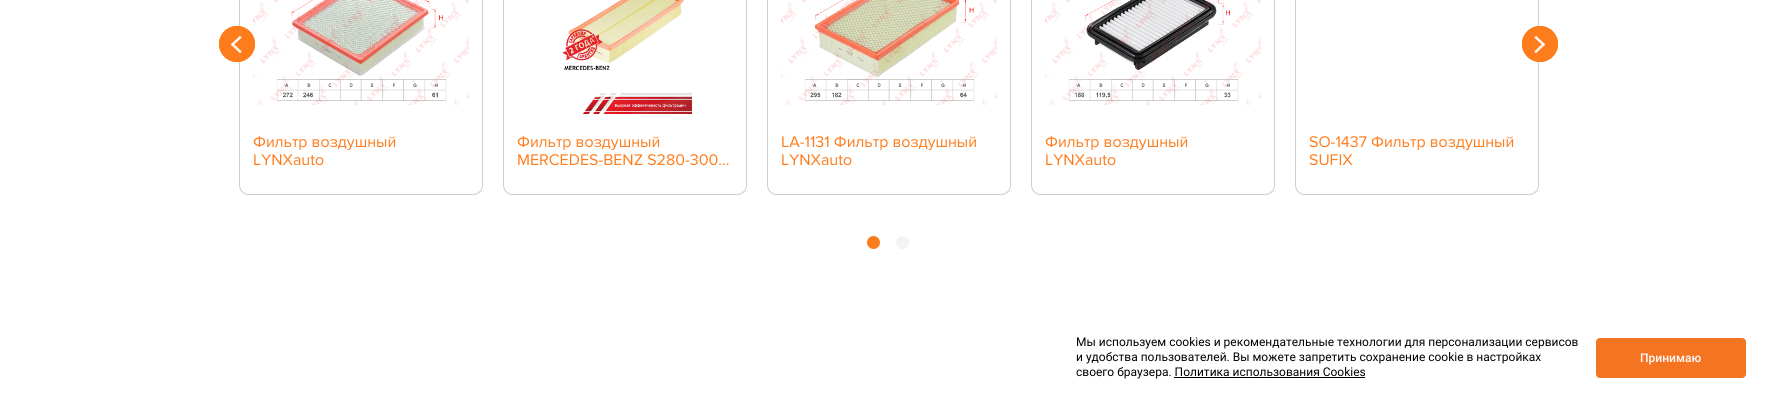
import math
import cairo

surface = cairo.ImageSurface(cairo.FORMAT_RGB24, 1776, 410)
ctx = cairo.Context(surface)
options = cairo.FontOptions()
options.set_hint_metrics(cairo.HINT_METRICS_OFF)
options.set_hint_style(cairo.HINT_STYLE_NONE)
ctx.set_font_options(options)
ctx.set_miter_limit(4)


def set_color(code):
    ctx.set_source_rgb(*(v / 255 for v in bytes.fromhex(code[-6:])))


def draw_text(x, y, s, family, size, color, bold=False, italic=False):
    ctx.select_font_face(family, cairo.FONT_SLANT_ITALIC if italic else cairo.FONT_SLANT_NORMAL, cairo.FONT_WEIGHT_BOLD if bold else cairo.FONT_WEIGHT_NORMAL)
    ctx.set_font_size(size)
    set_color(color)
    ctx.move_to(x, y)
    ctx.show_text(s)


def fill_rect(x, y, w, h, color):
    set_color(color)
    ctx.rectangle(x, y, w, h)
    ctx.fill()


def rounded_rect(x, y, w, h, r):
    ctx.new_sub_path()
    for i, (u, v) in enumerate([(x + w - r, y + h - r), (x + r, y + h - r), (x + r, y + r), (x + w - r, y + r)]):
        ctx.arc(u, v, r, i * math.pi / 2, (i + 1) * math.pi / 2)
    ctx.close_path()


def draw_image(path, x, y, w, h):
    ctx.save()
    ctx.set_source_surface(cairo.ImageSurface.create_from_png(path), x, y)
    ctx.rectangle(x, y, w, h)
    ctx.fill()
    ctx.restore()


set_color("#ffffff")
ctx.paint()
rounded_rect(239.5, -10.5, 243, 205, 9.5)
set_color("#cdcdcd")
ctx.set_line_width(1)
ctx.stroke()
draw_image("assets/img3.png", 253, 0, 216, 105)
set_color("#ff7c1c")
ctx.arc(237, 44, 18, 0, 2 * math.pi)
ctx.fill()
draw_image("assets/img1.png", 231, 36, 11, 17)
ctx.arc(237, 44, 16.5, 0, 2 * math.pi)
ctx.set_line_width(3)
ctx.stroke()
rounded_rect(1295.5, -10.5, 243, 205, 9.5)
set_color("#cdcdcd")
ctx.set_line_width(1)
ctx.stroke()
set_color("#ff7c1c")
ctx.arc(1540, 44, 18, 0, 2 * math.pi)
ctx.fill()
draw_image("assets/img2.png", 1534, 36, 11, 17)
ctx.arc(1540, 44, 16.5, 0, 2 * math.pi)
ctx.set_line_width(3)
ctx.stroke()
draw_text(253, 147, "Фильтр воздушный", "Proxima Nova", 16, "#ff7c1c")
draw_text(253, 165, "LYNXauto", "Proxima Nova", 16, "#ff7c1c")
rounded_rect(503.5, -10.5, 243, 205, 9.5)
set_color("#cdcdcd")
ctx.set_line_width(1)
ctx.stroke()
draw_image("assets/img4.png", 562, 0, 130, 114)
draw_text(517, 147, "Фильтр воздушный", "Proxima Nova", 16, "#ff7c1c")
draw_text(517, 165, "MERCEDES-BENZ S280-300...", "Proxima Nova", 16, "#ff7c1c")
rounded_rect(767.5, -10.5, 243, 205, 9.5)
set_color("#cdcdcd")
ctx.stroke()
draw_image("assets/img5.png", 781, 0, 216, 105)
draw_text(781, 147, "LA-1131 Фильтр воздушный", "Proxima Nova", 16, "#ff7c1c")
draw_text(781, 165, "LYNXauto", "Proxima Nova", 16, "#ff7c1c")
rounded_rect(1031.5, -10.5, 243, 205, 9.5)
set_color("#cdcdcd")
ctx.stroke()
draw_image("assets/img6.png", 1045, 0, 216, 105)
draw_text(1045, 147, "Фильтр воздушный", "Proxima Nova", 16, "#ff7c1c")
draw_text(1045, 165, "LYNXauto", "Proxima Nova", 16, "#ff7c1c")
draw_text(1309, 147, "SO-1437 Фильтр воздушный", "Proxima Nova", 16, "#ff7c1c")
draw_text(1309, 165, "SUFIX", "Proxima Nova", 16, "#ff7c1c")
ctx.new_path()
ctx.arc(873.5, 242.5, 6.5, 0, 2 * math.pi)
ctx.fill()
set_color("#f4f4f4")
ctx.arc(902.5, 242.5, 6.5, 0, 2 * math.pi)
ctx.fill()
draw_text(1076, 346, "Мы используем cookies и рекомендательные технологии для персонализации сервисов", "Roboto", 12, "#000000")
draw_text(1076, 361, "и удобства пользователей. Вы можете запретить сохранение cookie в настройках", "Roboto", 12, "#000000")
draw_text(1076, 376, "своего браузера. Политика использования Cookies", "Roboto", 12, "#000000")
fill_rect(1174, 377, 191, 1, "#000000")
set_color("#f47422")
rounded_rect(1596, 338, 150, 40, 4)
ctx.fill()
draw_text(1640, 362, "Принимаю", "Roboto Medium", 12, "#ffffff")
surface.write_to_png("output.png")
